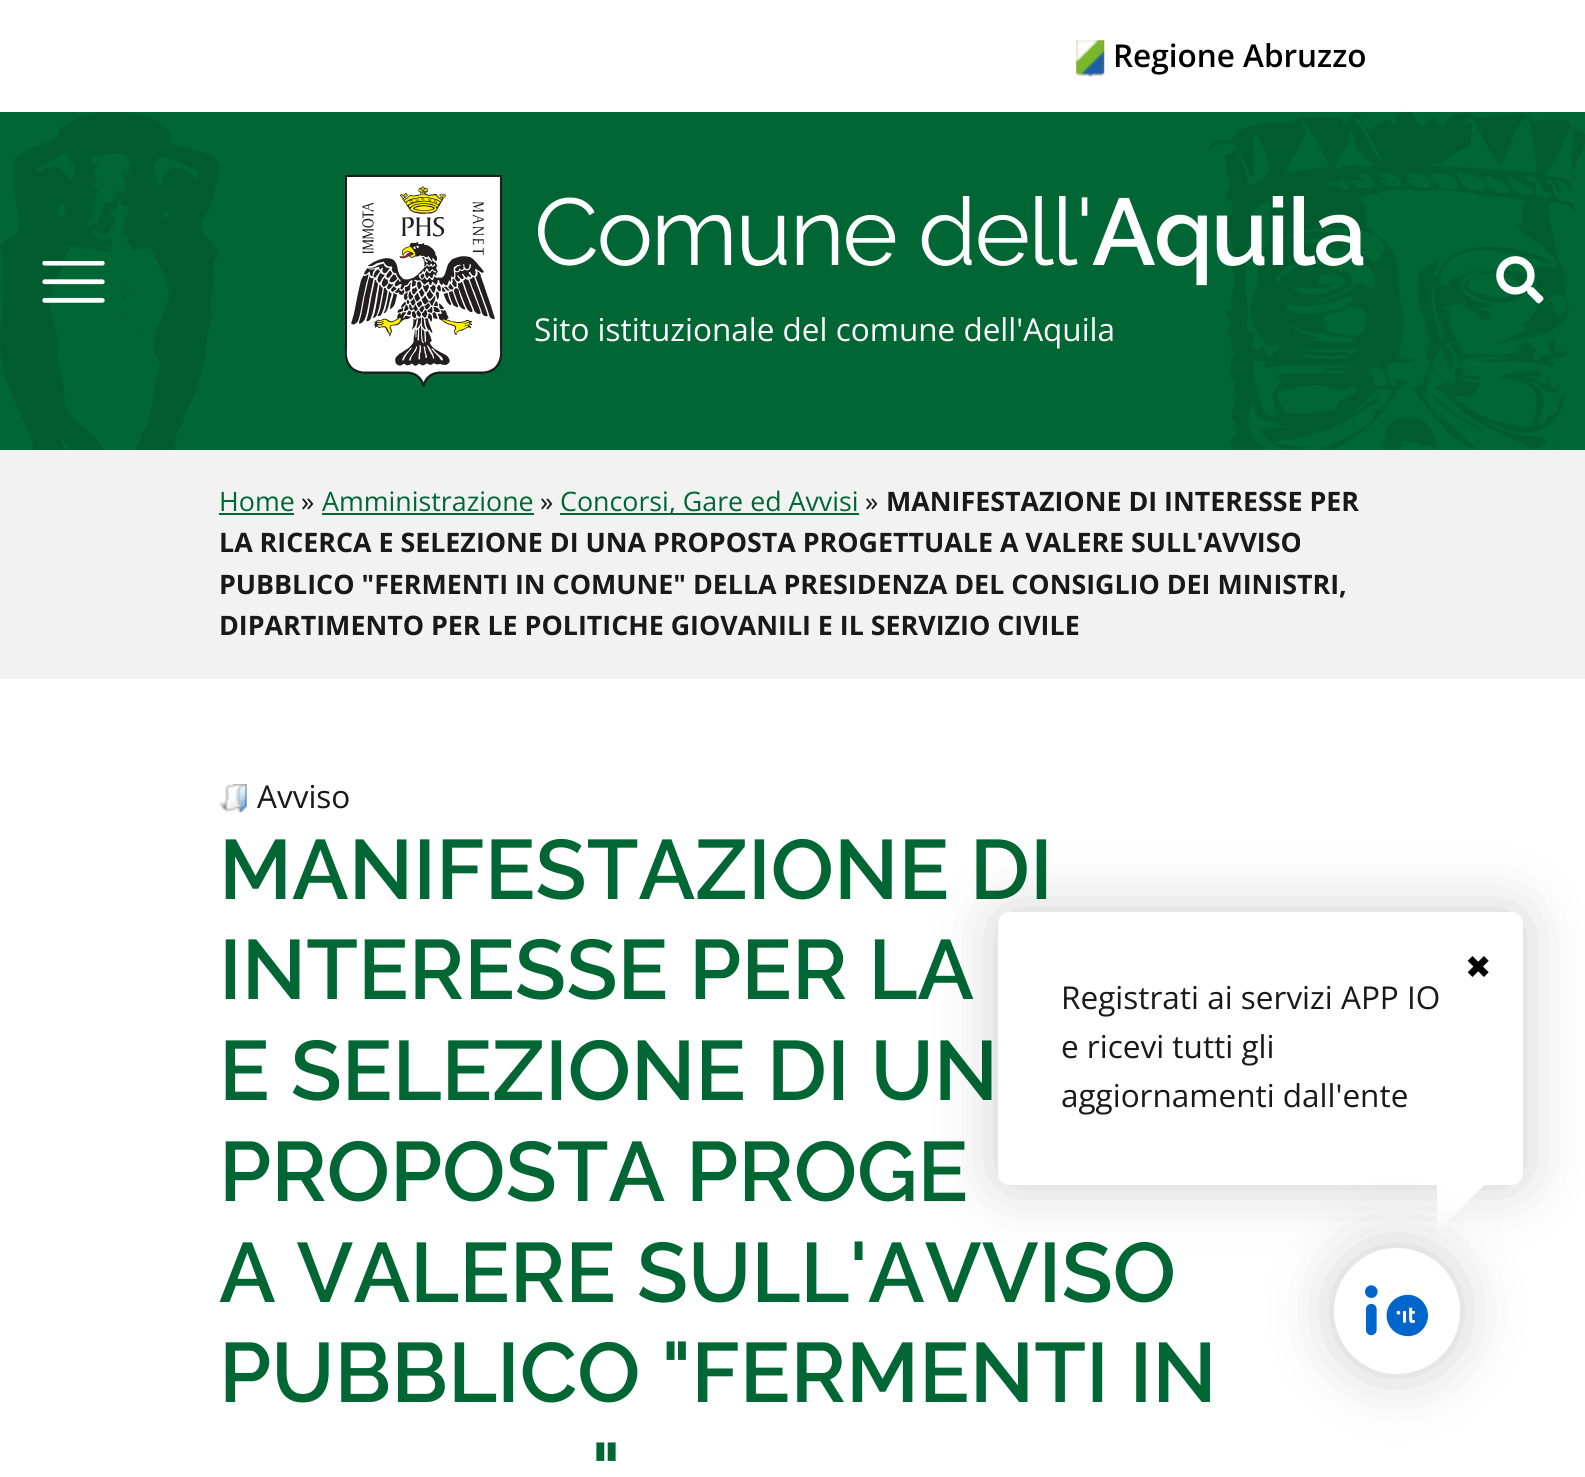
import math
import cairo

surface = cairo.ImageSurface(cairo.FORMAT_RGB24, 1585, 1477)
ctx = cairo.Context(surface)
options = cairo.FontOptions()
options.set_hint_metrics(cairo.HINT_METRICS_OFF)
options.set_hint_style(cairo.HINT_STYLE_NONE)
ctx.set_font_options(options)
ctx.set_miter_limit(4)


def set_color(code):
    ctx.set_source_rgb(*(v / 255 for v in bytes.fromhex(code[-6:])))


def draw_text(x, y, s, family, size, color, bold=False, italic=False):
    ctx.select_font_face(family, cairo.FONT_SLANT_ITALIC if italic else cairo.FONT_SLANT_NORMAL, cairo.FONT_WEIGHT_BOLD if bold else cairo.FONT_WEIGHT_NORMAL)
    ctx.set_font_size(size)
    set_color(color)
    ctx.move_to(x, y)
    ctx.show_text(s)


def draw_spaced(x, y, s, letter, word):
    ctx.move_to(x, y)
    for ch in s:
        ctx.show_text(ch)
        ctx.rel_move_to(letter + word * (ch == ' '), 0)


def fill_rect(x, y, w, h, color):
    set_color(color)
    ctx.rectangle(x, y, w, h)
    ctx.fill()


def rounded_rect(x, y, w, h, r):
    ctx.new_sub_path()
    for i, (u, v) in enumerate([(x + w - r, y + h - r), (x + r, y + h - r), (x + r, y + r), (x + w - r, y + r)]):
        ctx.arc(u, v, r, i * math.pi / 2, (i + 1) * math.pi / 2)
    ctx.close_path()


def draw_shadow(x, y, w, h, r, blur, alpha):
    ctx.push_group_with_content(cairo.CONTENT_ALPHA)
    ctx.set_operator(cairo.OPERATOR_SOURCE)
    for i in range(15, -16, -2):
        e = blur * i / 6
        if min(w, h) + 2 * e > 0:
            ctx.set_source_rgba(0, 0, 0, alpha * math.erfc((i - 1) / 8.5) / 2)
            rounded_rect(x - e, y - e, w + 2 * e, h + 2 * e, max(0, min(r + e + blur * .6, min(w, h) / 2 + e)))
            ctx.fill()
    ctx.mask(ctx.pop_group())


def draw_image(path, x, y, w, h):
    ctx.save()
    ctx.set_source_surface(cairo.ImageSurface.create_from_png(path), x, y)
    ctx.rectangle(x, y, w, h)
    ctx.fill()
    ctx.restore()


set_color("#ffffff")
ctx.paint()
draw_image("assets/img1.png", 1076, 40, 29, 37)
draw_text(1113, 67, "Regione Abruzzo", "Open Sans SemiBold", 31.5, "#000000")
fill_rect(0, 112, 1585, 338, "#006633")
draw_image("assets/img2.png", 0, 112, 220, 338)
draw_image("assets/img3.png", 345, 175, 157, 212)
ctx.select_font_face("Raleway")
ctx.set_font_size(94.5)
set_color("#ffffff")
draw_spaced(534, 265, "Comune dell'", -2.1, 0)
draw_image("assets/img4.png", 1208, 111, 377, 338)
ctx.select_font_face("Raleway SemiBold")
draw_spaced(1092, 265, "Aquila", -2.1, 0)
draw_text(534, 341, "Sito istituzionale del comune dell'Aquila", "Open Sans", 31.5, "#ffffff")
draw_image("assets/img5.png", 42, 261, 63, 42)
draw_image("assets/img6.png", 1496, 256, 48, 48)
fill_rect(0, 450, 1585, 229, "#f2f2f2")
draw_text(219, 511, "Home", "Open Sans", 26.8, "#006633")
fill_rect(219, 513, 75, 2, "#006633")
draw_text(301, 511, "»", "Open Sans", 26.8, "#19191a")
draw_text(322, 511, "Amministrazione", "Open Sans", 26.8, "#006633")
fill_rect(322, 513, 212, 2, "#006633")
draw_text(540, 511, "»", "Open Sans", 26.8, "#19191a")
fill_rect(560, 513, 299, 2, "#006633")
draw_text(560, 511, "Concorsi, Gare ed Avvisi", "Open Sans", 26.8, "#006633")
draw_text(865, 511, "»", "Open Sans", 26.8, "#19191a")
draw_text(886, 511, "MANIFESTAZIONE DI INTERESSE PER", "Open Sans", 26.8, "#19191a", bold=True)
draw_text(219, 552, "LA RICERCA E SELEZIONE DI UNA PROPOSTA PROGETTUALE A VALERE SULL'AVVISO", "Open Sans", 26.8, "#19191a", bold=True)
draw_text(219, 594, "PUBBLICO \"FERMENTI IN COMUNE\" DELLA PRESIDENZA DEL CONSIGLIO DEI MINISTRI,", "Open Sans", 26.8, "#19191a", bold=True)
draw_text(219, 635, "DIPARTIMENTO PER LE POLITICHE GIOVANILI E IL SERVIZIO CIVILE", "Open Sans", 26.8, "#19191a", bold=True)
draw_image("assets/img7.png", 219, 784, 28, 28)
draw_text(257, 808, "Avviso", "Open Sans", 31.5, "#19191a")
draw_text(219, 899, "MANIFESTAZIONE DI", "Raleway SemiBold", 84, "#006633")
draw_text(219, 999, "INTERESSE PER LA", "Raleway SemiBold", 84, "#006633")
draw_text(219, 1100, "E SELEZIONE DI UN", "Raleway SemiBold", 84, "#006633")
draw_text(219, 1201, "PROPOSTA PROGE", "Raleway SemiBold", 84, "#006633")
draw_text(219, 1302, "A VALERE SULL'AVVISO", "Raleway SemiBold", 84, "#006633")
draw_text(219, 1402, "PUBBLICO \"FERMENTI IN", "Raleway SemiBold", 84, "#006633")
draw_text(591, 1503, "\"", "Raleway SemiBold", 84, "#006633")
set_color("#000000")
draw_shadow(998, 912, 525, 273, 12, 31.5, 0.2)
set_color("#ffffff")
rounded_rect(998, 912, 525, 273, 12)
ctx.fill()
draw_text(1465, 978, "✖", "DejaVu Sans", 31.5, "#000000")
draw_text(1061, 1009, "Registrati ai servizi APP IO", "Open Sans", 31.5, "#19191a")
draw_text(1061, 1058, "e ricevi tutti gli", "Open Sans", 31.5, "#19191a")
draw_text(1061, 1107, "aggiornamenti dall'ente", "Open Sans", 31.5, "#19191a")
set_color("#ffffff")
ctx.new_path()
ctx.move_to(1437, 1178)
ctx.line_to(1491, 1178)
ctx.line_to(1437, 1232)
ctx.close_path()
ctx.fill()
set_color("#000000")
draw_shadow(1334, 1248, 126, 126, 63, 31.5, 0.2)
set_color("#ffffff")
ctx.arc(1397, 1311, 63, 0, 2 * math.pi)
ctx.fill()
draw_image("assets/img8.png", 1365, 1285, 63, 52)
surface.write_to_png("output.png")
